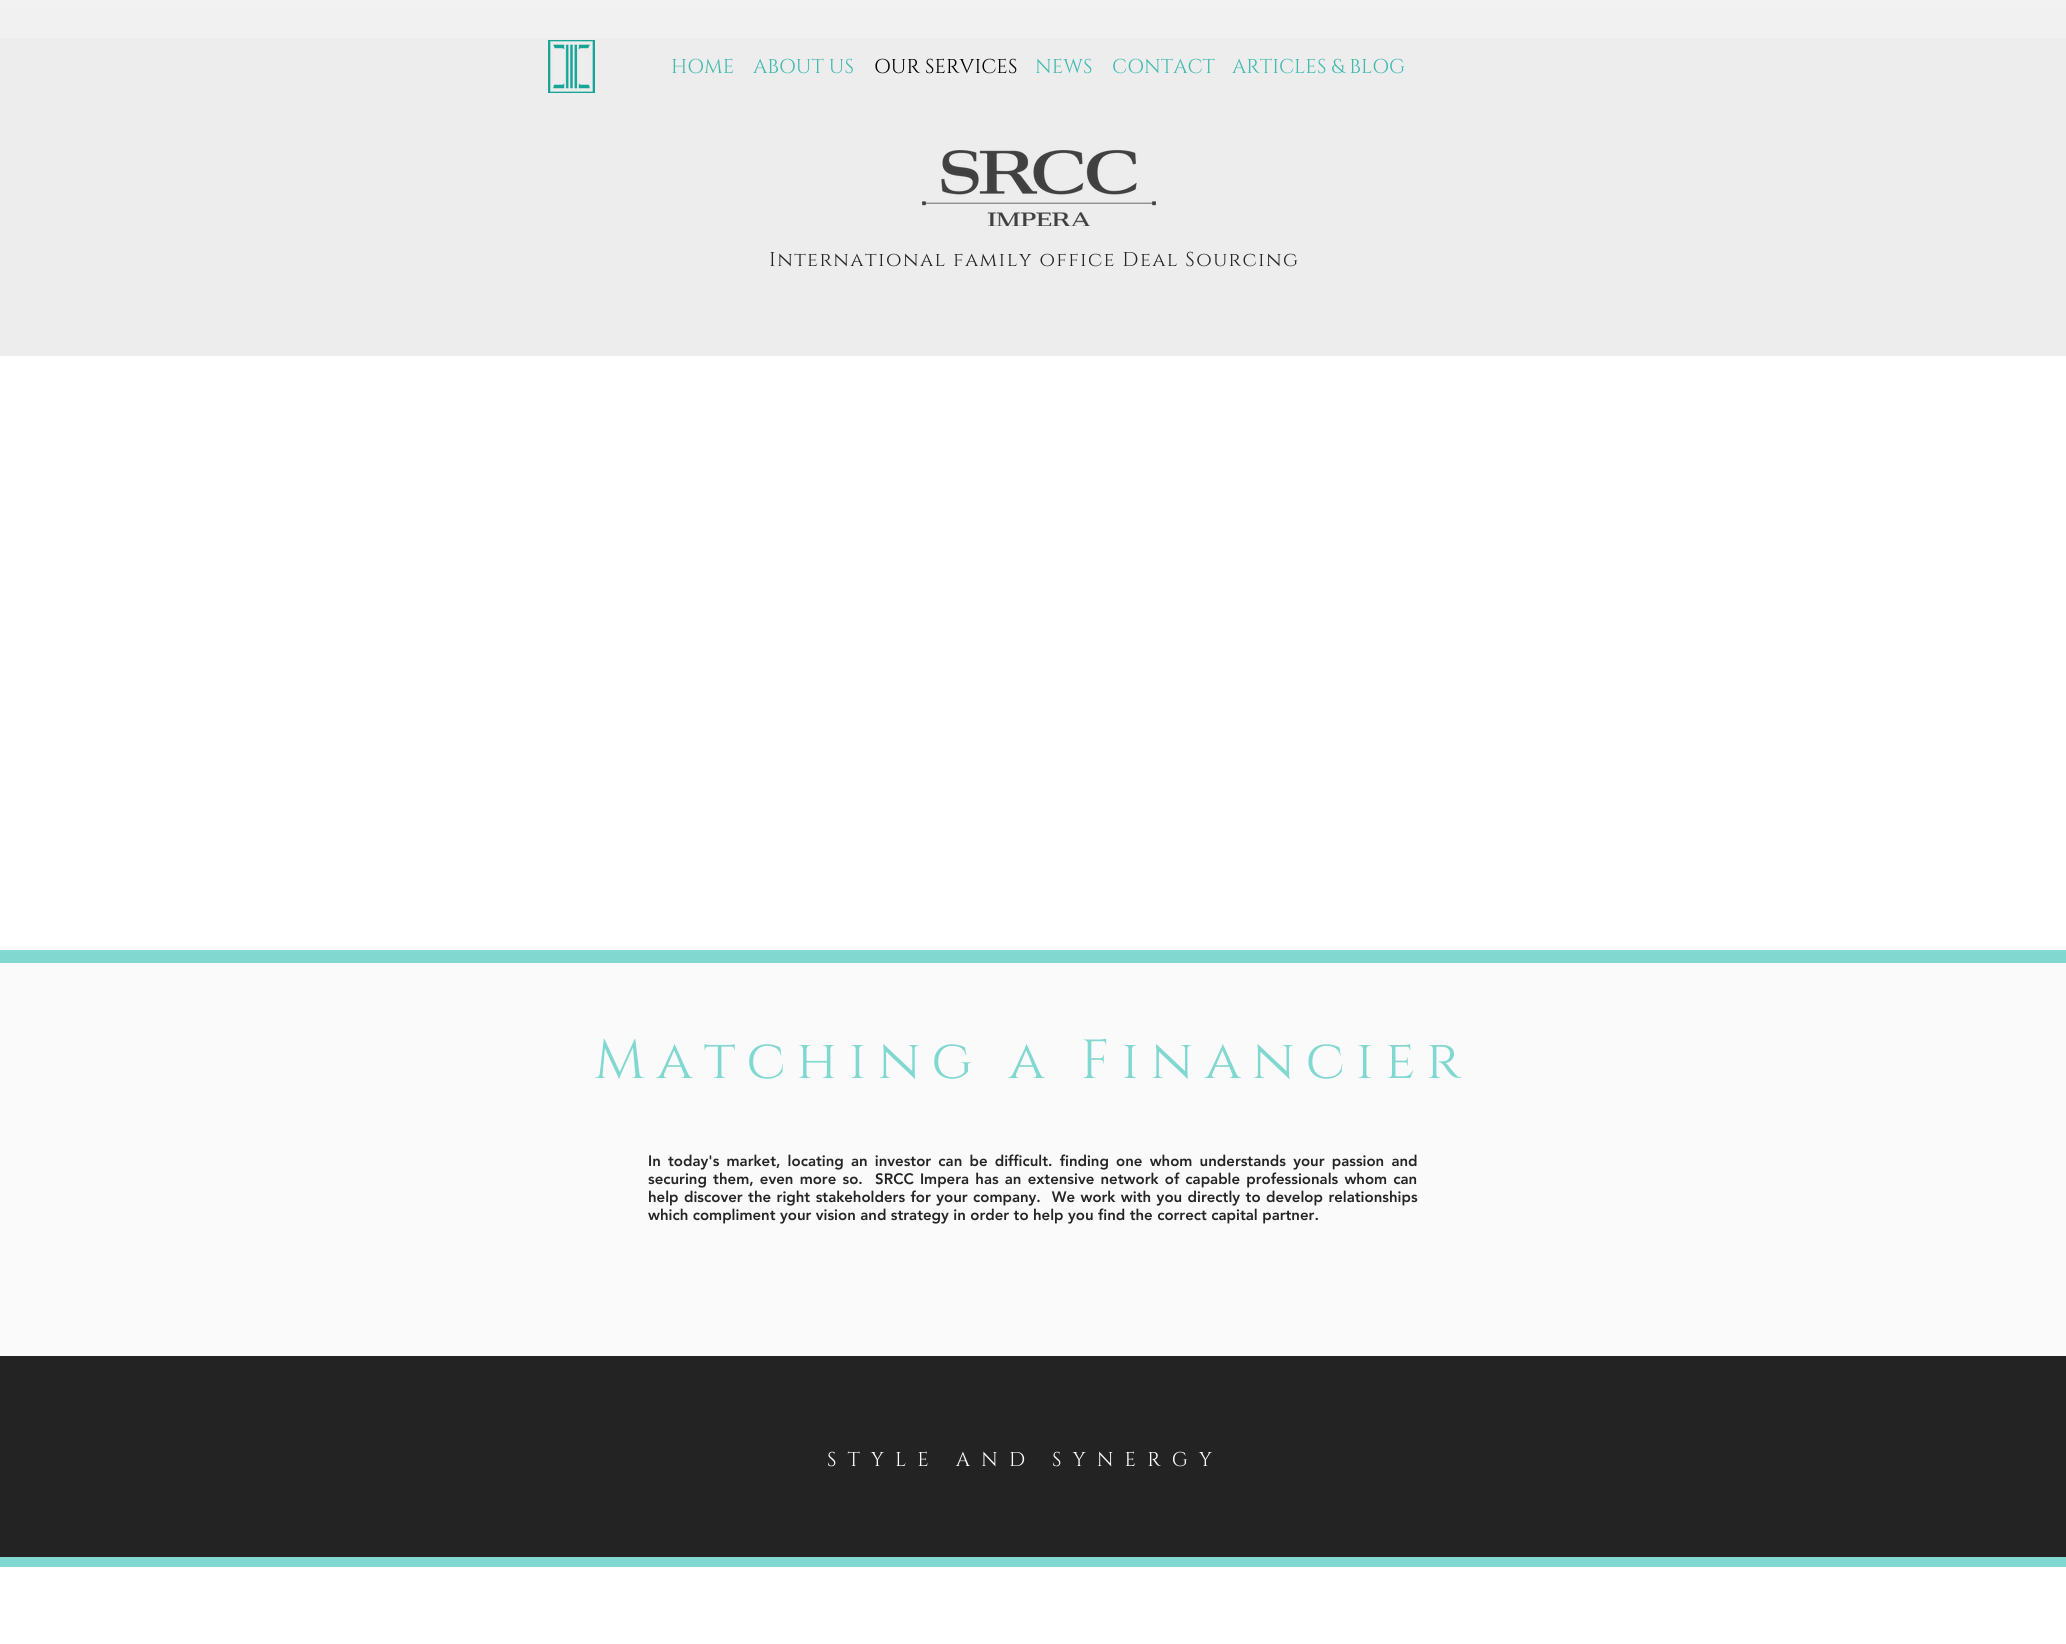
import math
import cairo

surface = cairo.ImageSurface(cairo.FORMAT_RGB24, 2066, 1644)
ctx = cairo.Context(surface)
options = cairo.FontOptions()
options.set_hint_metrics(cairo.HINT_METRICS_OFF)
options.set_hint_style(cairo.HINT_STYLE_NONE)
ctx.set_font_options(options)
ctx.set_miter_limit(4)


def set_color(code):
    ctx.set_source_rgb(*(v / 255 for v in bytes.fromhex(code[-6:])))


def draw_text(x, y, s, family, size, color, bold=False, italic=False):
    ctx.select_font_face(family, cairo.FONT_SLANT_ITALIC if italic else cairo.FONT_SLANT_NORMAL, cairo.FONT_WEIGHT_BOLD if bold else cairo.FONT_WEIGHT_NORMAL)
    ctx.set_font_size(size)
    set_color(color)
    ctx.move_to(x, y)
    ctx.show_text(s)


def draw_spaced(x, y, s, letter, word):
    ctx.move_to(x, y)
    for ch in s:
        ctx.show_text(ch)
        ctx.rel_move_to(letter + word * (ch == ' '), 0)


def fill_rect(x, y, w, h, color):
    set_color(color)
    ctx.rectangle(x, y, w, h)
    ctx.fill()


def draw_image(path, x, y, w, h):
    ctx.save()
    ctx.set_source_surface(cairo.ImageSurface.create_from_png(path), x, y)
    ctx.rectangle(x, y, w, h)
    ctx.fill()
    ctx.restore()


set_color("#ededed")
ctx.paint()
draw_image("assets/img1.png", 0, 0, 2066, 38)
draw_image("assets/img2.png", 548, 40, 47, 53)
draw_text(671, 73, "HOME", "Cinzel", 20, "#41baae")
draw_text(753, 73, "ABOUT US", "Cinzel", 20, "#41baae")
draw_text(874, 73, "OUR SERVICES", "Cinzel", 20, "#000000")
draw_text(1035, 73, "NEWS", "Cinzel", 20, "#41baae")
draw_text(1112, 73, "CONTACT", "Cinzel", 20, "#41baae")
draw_text(1232, 73, "ARTICLES & BLOG", "Cinzel", 20, "#41baae")
draw_image("assets/img3.png", 922, 150, 234, 76)
set_color("#252525")
draw_spaced(769, 266, "International family office Deal Sourcing", 1.4, 0)
fill_rect(0, 356, 2066, 594, "#ffffff")
fill_rect(0, 950, 2066, 13, "#81d8d0")
fill_rect(0, 963, 2066, 393, "#fafafa")
ctx.set_font_size(55)
set_color("#81d8d0")
draw_spaced(594, 1078, "Matching a Financier", 11, 0)
ctx.select_font_face("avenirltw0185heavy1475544 Black")
ctx.set_font_size(15)
set_color("#252525")
draw_spaced(648, 1166, "In today's market, locating an investor can be difficult. finding one whom understands your passion and", 0, 2.75)
draw_spaced(648, 1184, "securing them, even more so.  SRCC Impera has an extensive network of capable professionals whom can", 0, 1.75)
draw_spaced(648, 1202, "help discover the right stakeholders for your company.  We work with you directly to develop relationships", 0, 1)
draw_text(648, 1220, "which compliment your vision and strategy in order to help you find the correct capital partner.", "avenirltw0185heavy1475544 Black", 15, "#252525")
fill_rect(0, 1356, 2066, 201, "#242323")
ctx.select_font_face("Cinzel")
ctx.set_font_size(20)
set_color("#ffffff")
draw_spaced(827, 1466, "STYLE AND SYNERGY", 11, 0)
fill_rect(0, 1557, 2066, 10, "#81d8d0")
fill_rect(0, 1567, 2066, 77, "#ffffff")
surface.write_to_png("output.png")
